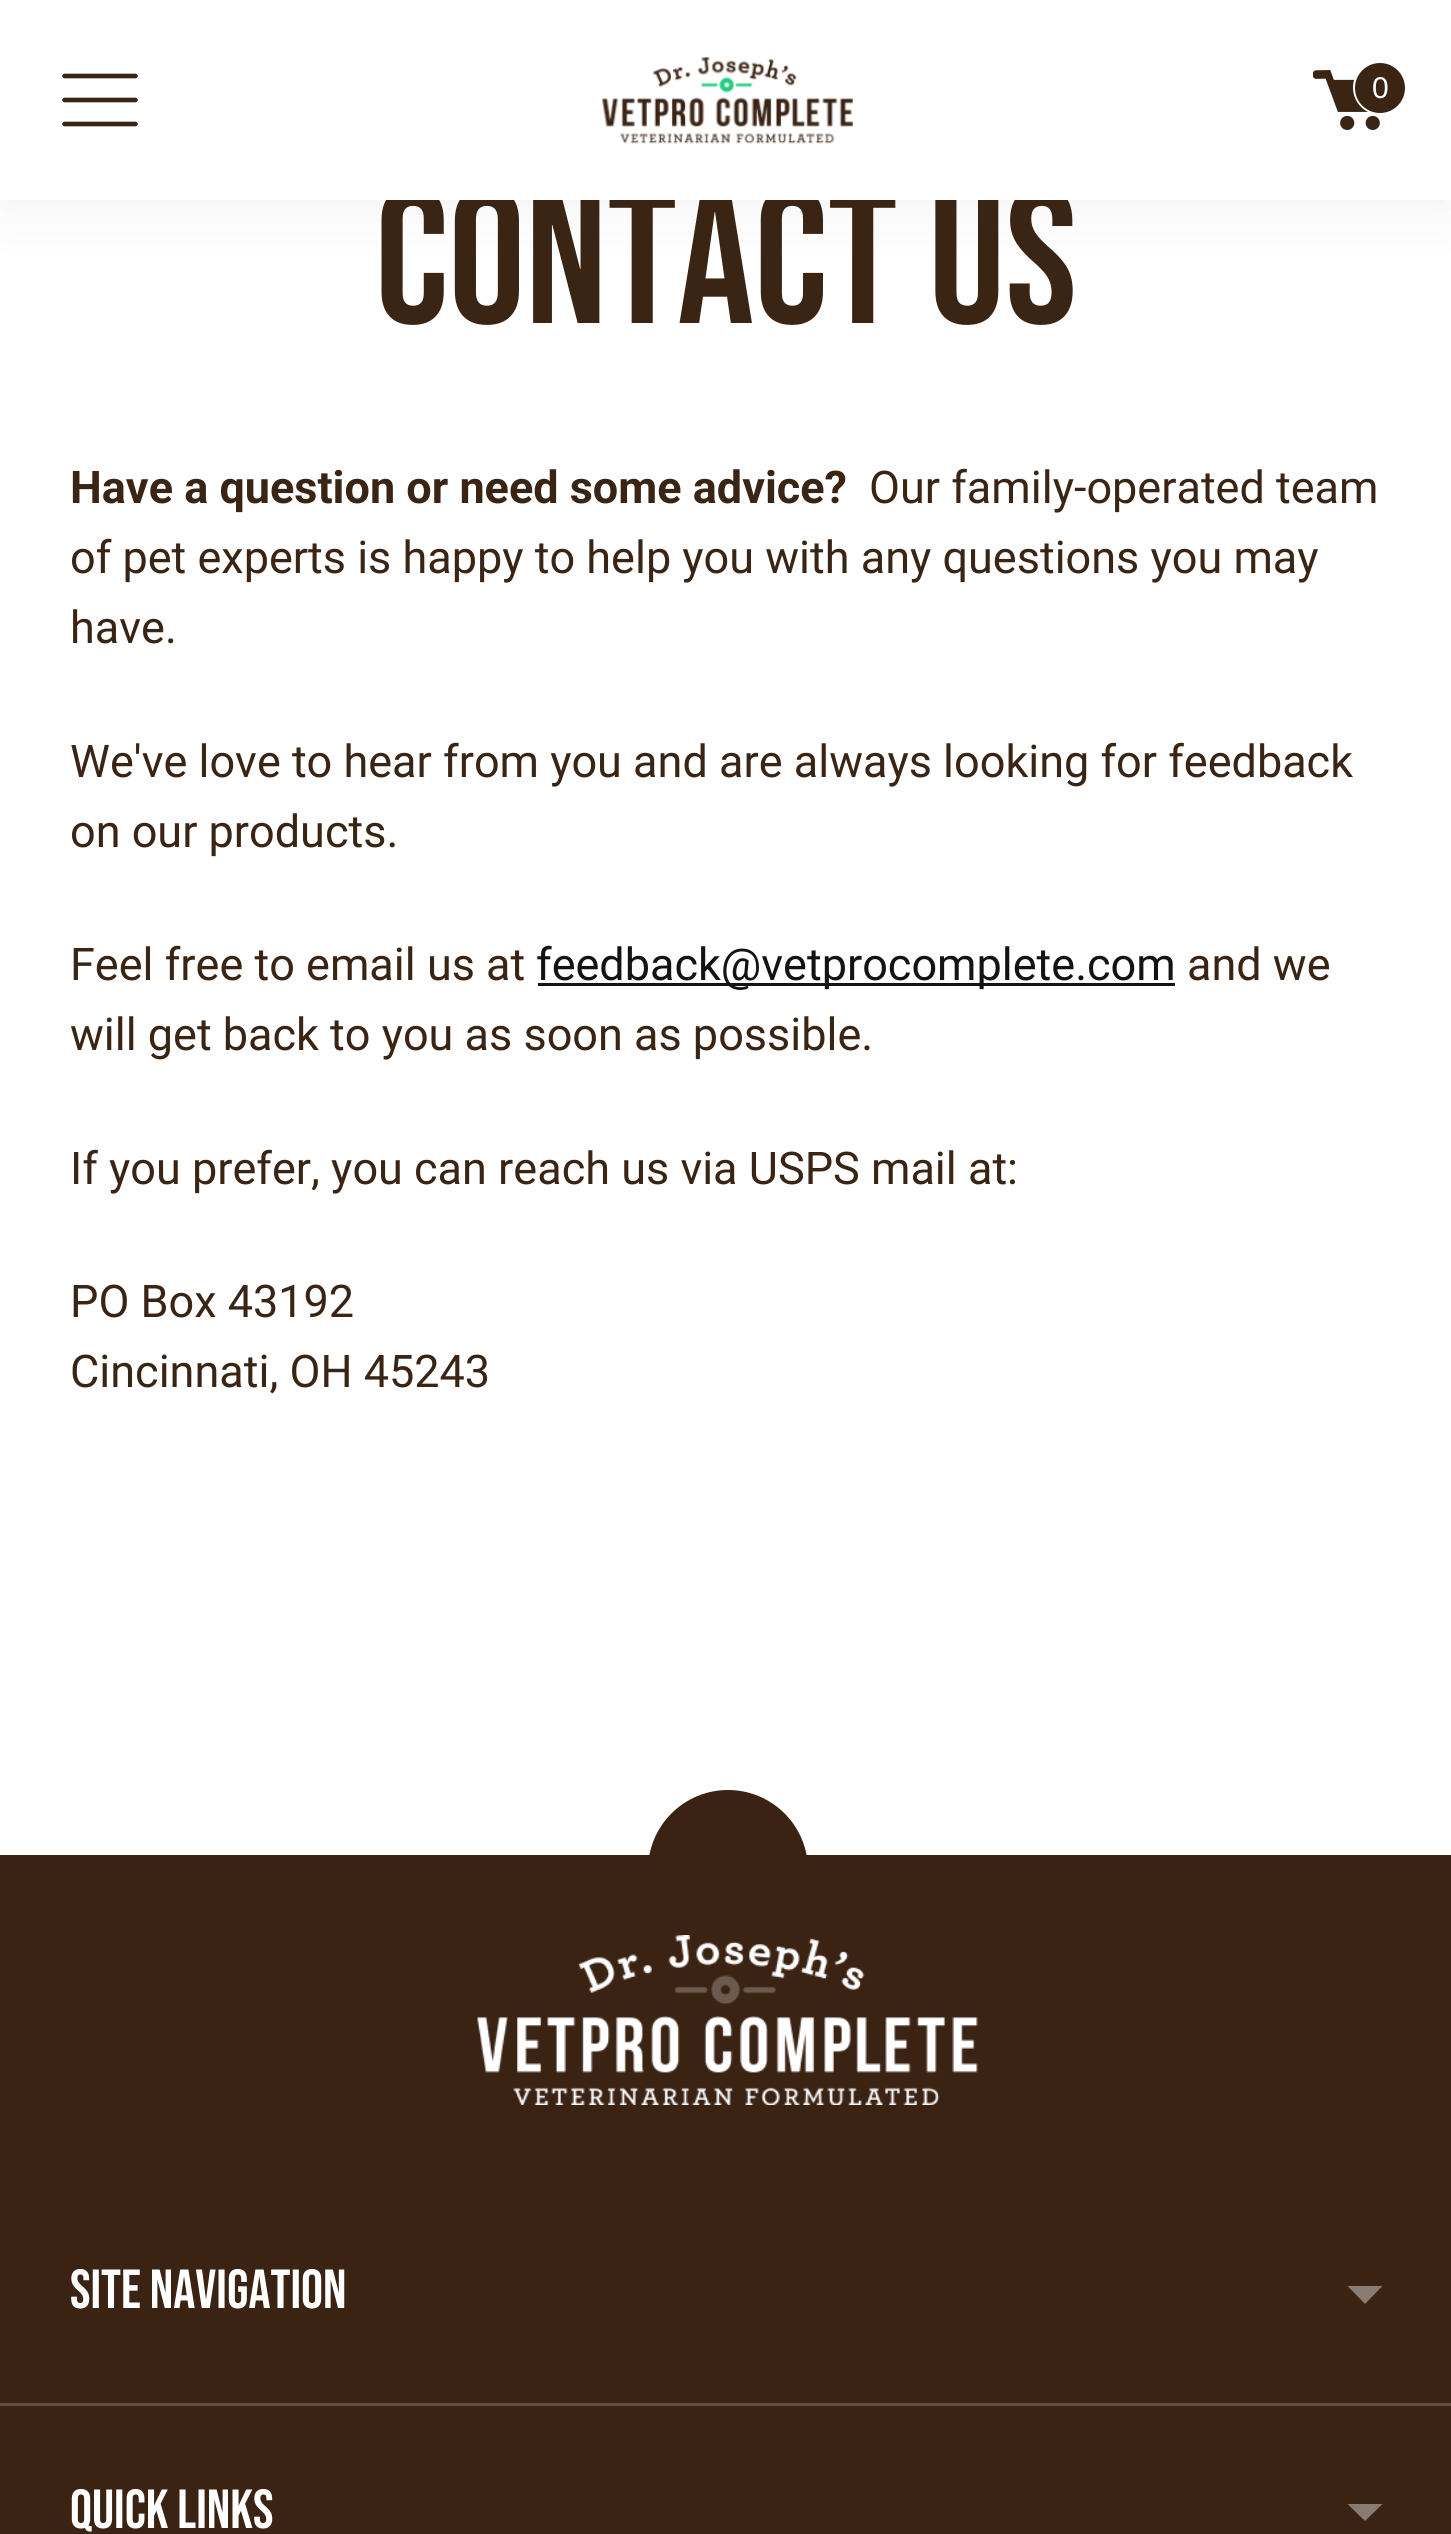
import math
import cairo

surface = cairo.ImageSurface(cairo.FORMAT_RGB24, 1451, 2534)
ctx = cairo.Context(surface)
options = cairo.FontOptions()
options.set_hint_metrics(cairo.HINT_METRICS_OFF)
options.set_hint_style(cairo.HINT_STYLE_NONE)
ctx.set_font_options(options)
ctx.set_miter_limit(4)


def set_color(code):
    ctx.set_source_rgb(*(v / 255 for v in bytes.fromhex(code[-6:])))


def draw_text(x, y, s, family, size, color, bold=False, italic=False):
    ctx.select_font_face(family, cairo.FONT_SLANT_ITALIC if italic else cairo.FONT_SLANT_NORMAL, cairo.FONT_WEIGHT_BOLD if bold else cairo.FONT_WEIGHT_NORMAL)
    ctx.set_font_size(size)
    set_color(color)
    ctx.move_to(x, y)
    ctx.show_text(s)


def fill_rect(x, y, w, h, color):
    set_color(color)
    ctx.rectangle(x, y, w, h)
    ctx.fill()


def rounded_rect(x, y, w, h, r):
    ctx.new_sub_path()
    for i, (u, v) in enumerate([(x + w - r, y + h - r), (x + r, y + h - r), (x + r, y + r), (x + w - r, y + r)]):
        ctx.arc(u, v, r, i * math.pi / 2, (i + 1) * math.pi / 2)
    ctx.close_path()


def draw_shadow(x, y, w, h, r, blur, alpha):
    ctx.push_group_with_content(cairo.CONTENT_ALPHA)
    ctx.set_operator(cairo.OPERATOR_SOURCE)
    for i in range(15, -16, -2):
        e = blur * i / 6
        if min(w, h) + 2 * e > 0:
            ctx.set_source_rgba(0, 0, 0, alpha * math.erfc((i - 1) / 8.5) / 2)
            rounded_rect(x - e, y - e, w + 2 * e, h + 2 * e, max(0, min(r + e + blur * .6, min(w, h) / 2 + e)))
            ctx.fill()
    ctx.mask(ctx.pop_group())


def draw_image(path, x, y, w, h):
    ctx.save()
    ctx.set_source_surface(cairo.ImageSurface.create_from_png(path), x, y)
    ctx.rectangle(x, y, w, h)
    ctx.fill()
    ctx.restore()


set_color("#ffffff")
ctx.paint()
set_color("#000000")
draw_shadow(0, 10, 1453, 200, 0, 30, 0.05)
draw_text(375, 323, "Contact Us", "Bebas Neue", 192, "#3a2514")
fill_rect(0, 0, 1451, 200, "#ffffff")
ctx.new_path()
ctx.move_to(64.5, 100)
ctx.line_to(135.5, 100)
ctx.move_to(64.5, 76)
ctx.line_to(135.5, 76)
ctx.move_to(64.5, 124)
ctx.line_to(135.5, 124)
set_color("#3a2514")
ctx.set_line_width(4.6)
ctx.set_line_cap(cairo.LINE_CAP_ROUND)
ctx.set_line_join(cairo.LINE_JOIN_ROUND)
ctx.stroke()
draw_image("assets/img1.png", 602, 57, 251, 87)
draw_image("assets/img2.png", 1313, 70, 67, 60)
ctx.arc(1380.5, 87.5, 26, 0, 2 * math.pi)
set_color("#ffffff")
ctx.set_line_width(3)
ctx.set_line_cap(cairo.LINE_CAP_BUTT)
ctx.set_line_join(cairo.LINE_JOIN_MITER)
ctx.stroke()
set_color("#3a2514")
ctx.arc(1380, 88, 25, 0, 2 * math.pi)
ctx.fill()
draw_text(1372, 98, "0", "Liberation Sans", 30, "#ffffff")
draw_text(70, 503, "Have a question or need some advice?", "Roboto", 45, "#3a2514", bold=True)
draw_text(869, 503, "Our family-operated team", "Roboto", 45, "#3a2514")
draw_text(70, 573, "of pet experts is happy to help you with any questions you may", "Roboto", 45, "#3a2514")
draw_text(70, 643, "have.", "Roboto", 45, "#3a2514")
draw_text(70, 777, "We've love to hear from you and are always looking for feedback", "Roboto", 45, "#3a2514")
draw_text(70, 847, "on our products.", "Roboto", 45, "#3a2514")
draw_text(70, 980, "Feel free to email us at", "Roboto", 45, "#3a2514")
fill_rect(538, 983, 637, 3, "#131313")
draw_text(536, 980, "feedback@vetprocomplete.com", "Roboto", 45, "#131313")
draw_text(1187, 980, "and we", "Roboto", 45, "#3a2514")
draw_text(70, 1050, "will get back to you as soon as possible.", "Roboto", 45, "#3a2514")
draw_text(70, 1184, "If you prefer, you can reach us via USPS mail at:", "Roboto", 45, "#3a2514")
draw_text(70, 1317, "PO Box 43192", "Roboto", 45, "#3a2514")
draw_text(70, 1387, "Cincinnati, OH 45243", "Roboto", 45, "#3a2514")
fill_rect(0, 1855, 1451, 679, "#3b2314")
ctx.new_path()
ctx.arc(728, 1870, 80, 0, 2 * math.pi)
ctx.fill()
draw_image("assets/img3.png", 477, 1935, 501, 170)
fill_rect(0, 2403, 1451, 3, "#624f43")
draw_text(70, 2308, "Site Navigation", "Bebas Neue", 55, "#ffffff")
set_color("#897b72")
ctx.new_path()
ctx.move_to(1347.5, 2286)
ctx.line_to(1365, 2304)
ctx.line_to(1382.5, 2286)
ctx.close_path()
ctx.fill()
draw_text(70, 2528, "Quick Links", "Bebas Neue", 55, "#ffffff")
set_color("#897b72")
ctx.new_path()
ctx.move_to(1347.5, 2504)
ctx.line_to(1365, 2521)
ctx.line_to(1382.5, 2504)
ctx.close_path()
ctx.fill()
surface.write_to_png("output.png")
